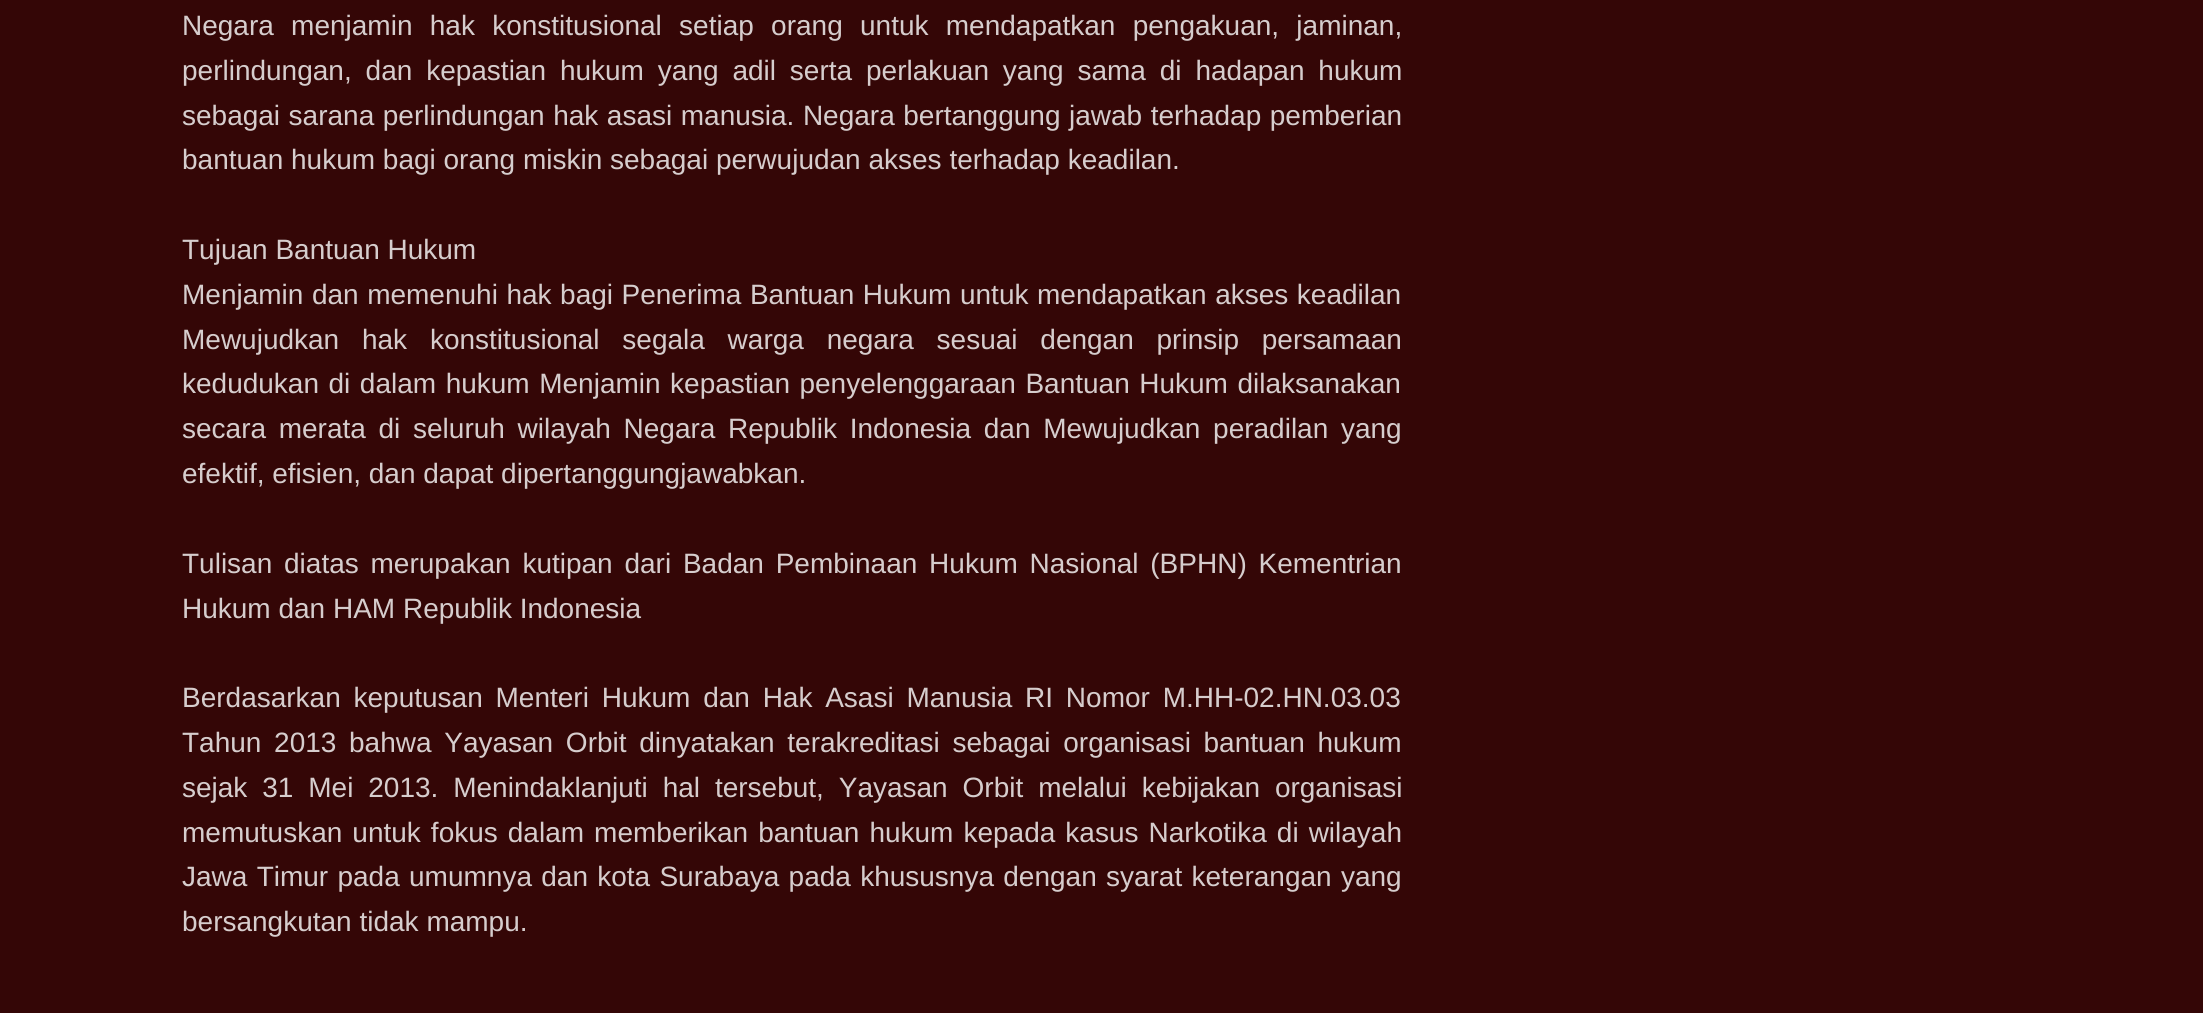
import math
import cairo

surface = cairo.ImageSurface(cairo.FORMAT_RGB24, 2203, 1013)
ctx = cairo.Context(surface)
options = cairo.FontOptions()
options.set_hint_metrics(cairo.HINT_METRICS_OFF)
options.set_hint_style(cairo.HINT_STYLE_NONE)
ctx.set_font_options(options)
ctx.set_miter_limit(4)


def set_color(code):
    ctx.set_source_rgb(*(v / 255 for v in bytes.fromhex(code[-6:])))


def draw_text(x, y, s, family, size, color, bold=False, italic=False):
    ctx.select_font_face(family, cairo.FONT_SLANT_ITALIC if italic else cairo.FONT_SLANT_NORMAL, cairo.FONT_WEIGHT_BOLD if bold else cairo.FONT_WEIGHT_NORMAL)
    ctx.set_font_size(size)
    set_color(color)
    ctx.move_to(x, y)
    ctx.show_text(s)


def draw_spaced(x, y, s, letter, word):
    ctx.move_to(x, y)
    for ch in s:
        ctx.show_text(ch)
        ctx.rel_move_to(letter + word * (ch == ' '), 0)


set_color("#340606")
ctx.paint()
ctx.select_font_face("Liberation Sans")
ctx.set_font_size(28)
set_color("#d6cdcd")
draw_spaced(182, 35, "Negara menjamin hak konstitusional setiap orang untuk mendapatkan pengakuan, jaminan,", 0, 9.5)
draw_spaced(182, 80, "perlindungan, dan kepastian hukum yang adil serta perlakuan yang sama di hadapan hukum", 0, 6.1)
draw_spaced(182, 125, "sebagai sarana perlindungan hak asasi manusia. Negara bertanggung jawab terhadap pemberian", 0, 0.75)
draw_text(182, 169, "bantuan hukum bagi orang miskin sebagai perwujudan akses terhadap keadilan.", "Liberation Sans", 28, "#d6cdcd")
draw_text(182, 259, "Tujuan Bantuan Hukum", "Liberation Sans", 28, "#d6cdcd")
draw_spaced(182, 304, "Menjamin dan memenuhi hak bagi Penerima Bantuan Hukum untuk mendapatkan akses keadilan", 0, 0.75)
draw_spaced(182, 349, "Mewujudkan hak konstitusional segala warga negara sesuai dengan prinsip persamaan", 0, 15)
draw_spaced(182, 393, "kedudukan di dalam hukum Menjamin kepastian penyelenggaraan Bantuan Hukum dilaksanakan", 0, 1.75)
draw_spaced(182, 438, "secara merata di seluruh wilayah Negara Republik Indonesia dan Mewujudkan peradilan yang", 0, 4.9)
draw_text(182, 483, "efektif, efisien, dan dapat dipertanggungjawabkan.", "Liberation Sans", 28, "#d6cdcd")
draw_spaced(182, 573, "Tulisan diatas merupakan kutipan dari Badan Pembinaan Hukum Nasional (BPHN) Kementrian", 0, 4)
draw_text(182, 618, "Hukum dan HAM Republik Indonesia", "Liberation Sans", 28, "#d6cdcd")
draw_spaced(182, 707, "Berdasarkan keputusan Menteri Hukum dan Hak Asasi Manusia RI Nomor M.HH-02.HN.03.03", 0, 5)
draw_spaced(182, 752, "Tahun 2013 bahwa Yayasan Orbit dinyatakan terakreditasi sebagai organisasi bantuan hukum", 0, 4.9)
draw_spaced(182, 797, "sejak 31 Mei 2013. Menindaklanjuti hal tersebut, Yayasan Orbit melalui kebijakan organisasi", 0, 7.1)
draw_spaced(182, 842, "memutuskan untuk fokus dalam memberikan bantuan hukum kepada kasus Narkotika di wilayah", 0, 2.25)
draw_spaced(182, 886, "Jawa Timur pada umumnya dan kota Surabaya pada khususnya dengan syarat keterangan yang", 0, 1.5)
draw_text(182, 931, "bersangkutan tidak mampu.", "Liberation Sans", 28, "#d6cdcd")
surface.write_to_png("output.png")
